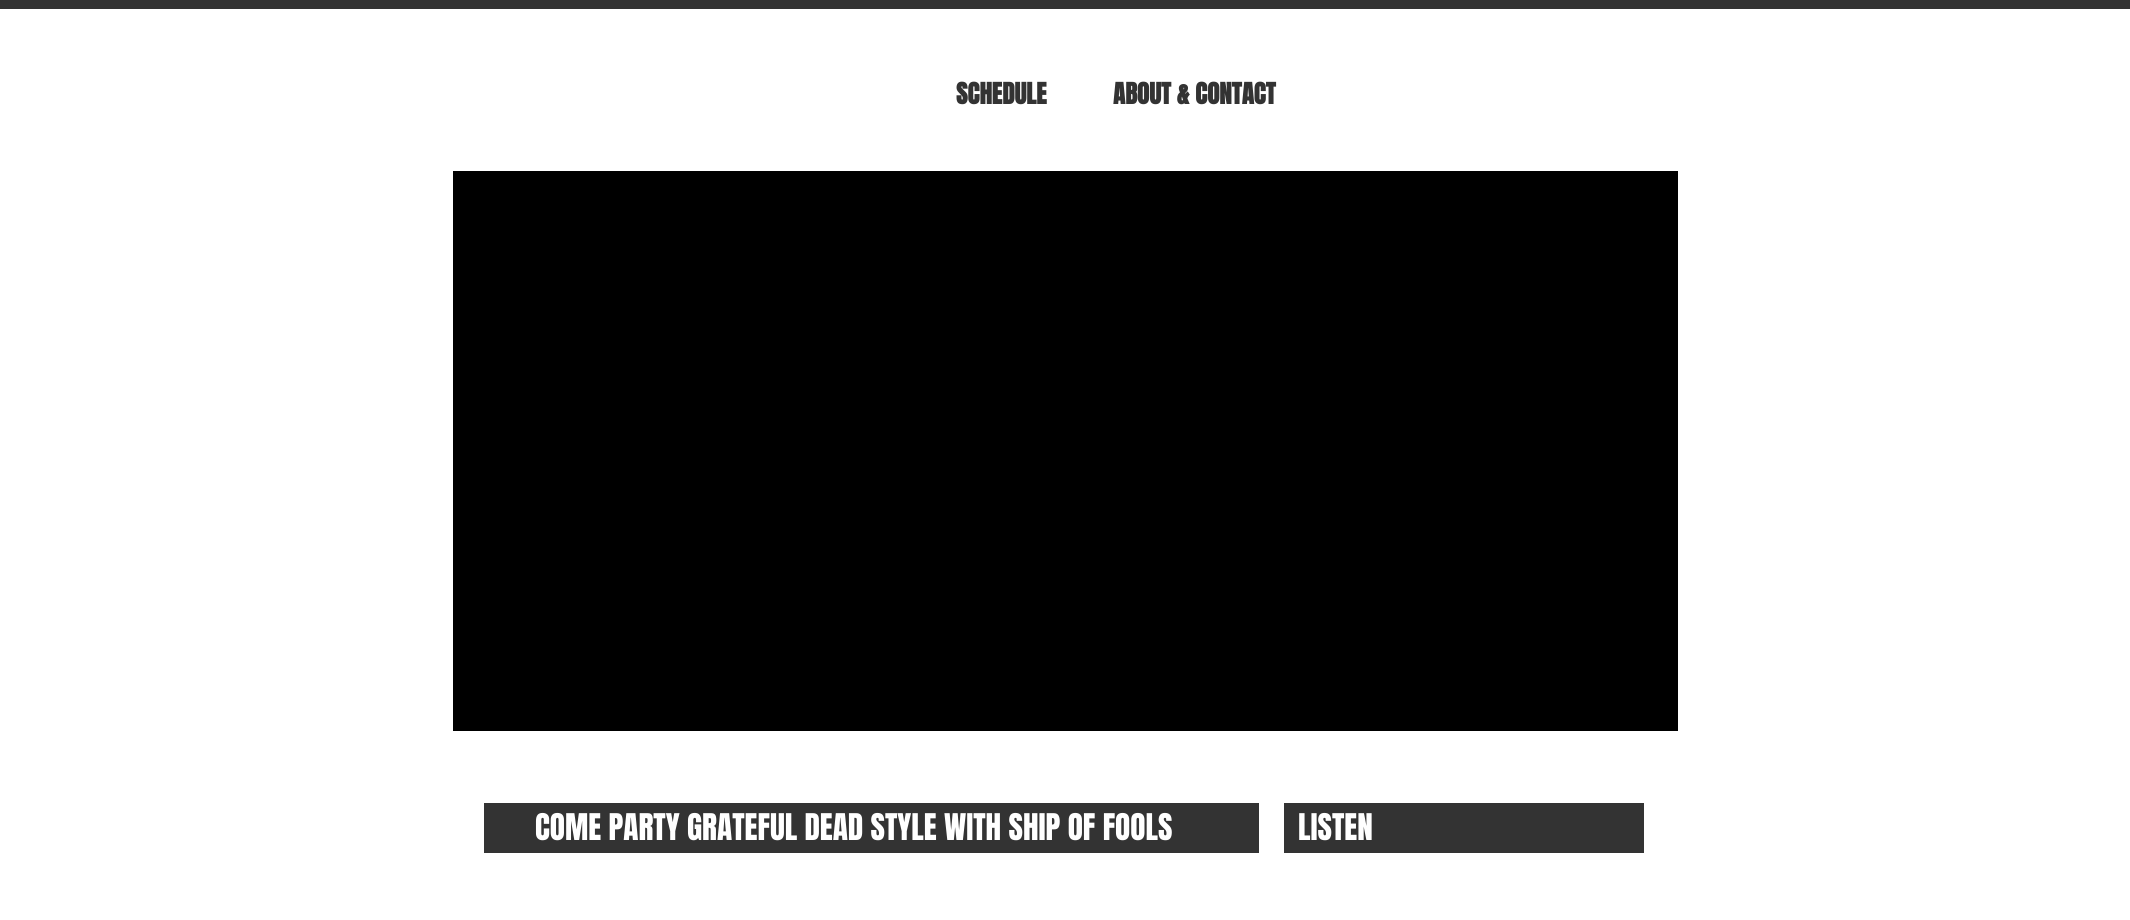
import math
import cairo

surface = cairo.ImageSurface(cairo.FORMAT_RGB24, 2130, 920)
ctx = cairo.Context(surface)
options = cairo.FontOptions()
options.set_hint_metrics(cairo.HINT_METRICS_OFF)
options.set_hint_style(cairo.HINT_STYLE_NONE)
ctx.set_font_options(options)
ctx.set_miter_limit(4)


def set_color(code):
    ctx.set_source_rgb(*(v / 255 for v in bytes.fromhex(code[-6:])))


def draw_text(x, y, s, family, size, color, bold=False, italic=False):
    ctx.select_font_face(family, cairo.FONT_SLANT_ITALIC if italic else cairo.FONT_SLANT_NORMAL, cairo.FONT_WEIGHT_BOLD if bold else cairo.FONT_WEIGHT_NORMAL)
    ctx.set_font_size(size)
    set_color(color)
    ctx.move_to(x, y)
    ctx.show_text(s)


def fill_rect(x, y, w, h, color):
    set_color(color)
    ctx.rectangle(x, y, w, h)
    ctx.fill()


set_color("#ffffff")
ctx.paint()
fill_rect(0, 0, 2130, 9, "#333333")
draw_text(956, 104, "SCHEDULE", "Anton", 25, "#333333", bold=True)
draw_text(1113, 104, "ABOUT & CONTACT", "Anton", 25, "#333333", bold=True)
fill_rect(453, 171, 1225, 560, "#000000")
fill_rect(484, 803, 775, 50, "#333333")
draw_text(535, 840, "COME PARTY GRATEFUL DEAD STYLE WITH SHIP OF FOOLS", "Anton", 31.25, "#ffffff")
fill_rect(1284, 803, 360, 50, "#333333")
draw_text(1298, 840, "LISTEN", "Anton", 31.25, "#ffffff")
surface.write_to_png("output.png")
